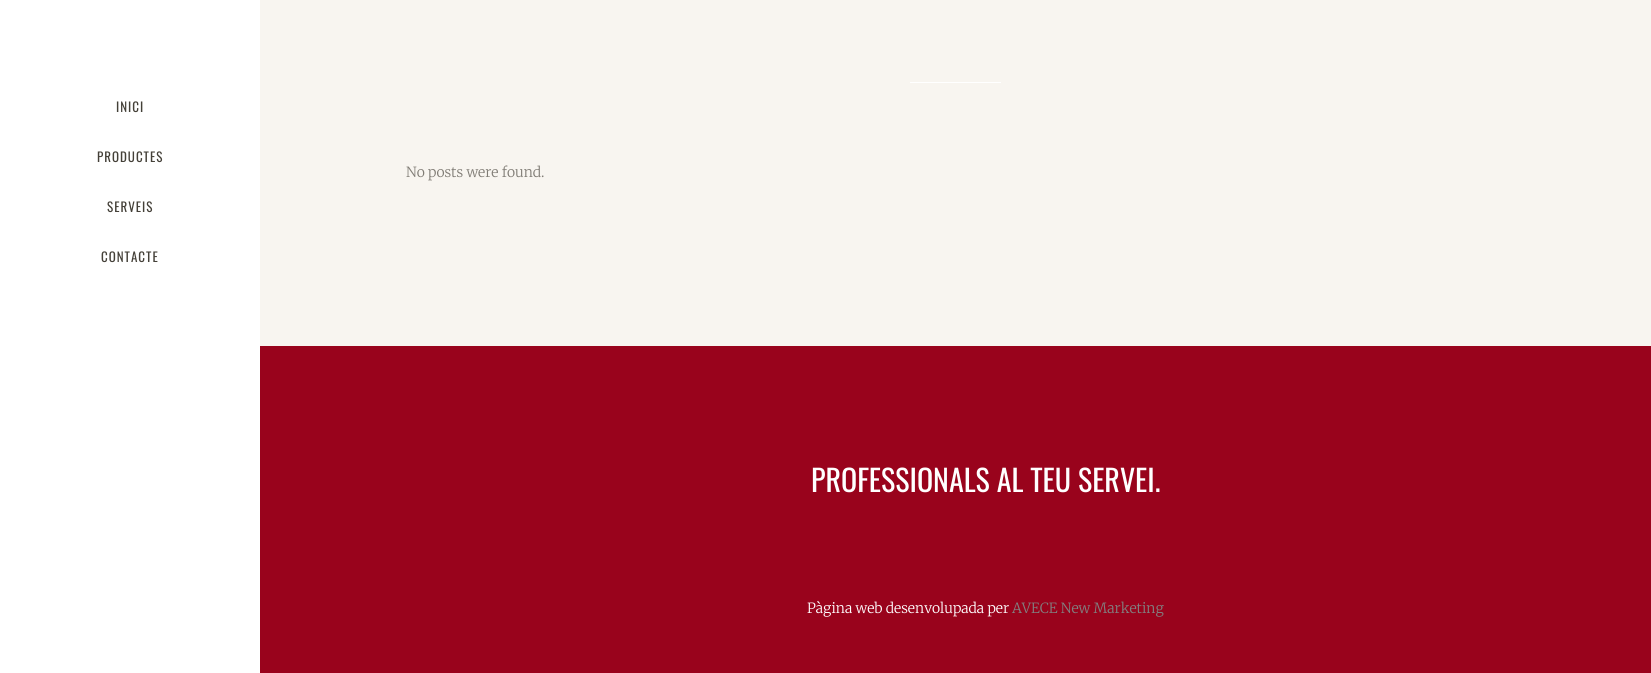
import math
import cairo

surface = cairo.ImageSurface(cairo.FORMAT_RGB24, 1651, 673)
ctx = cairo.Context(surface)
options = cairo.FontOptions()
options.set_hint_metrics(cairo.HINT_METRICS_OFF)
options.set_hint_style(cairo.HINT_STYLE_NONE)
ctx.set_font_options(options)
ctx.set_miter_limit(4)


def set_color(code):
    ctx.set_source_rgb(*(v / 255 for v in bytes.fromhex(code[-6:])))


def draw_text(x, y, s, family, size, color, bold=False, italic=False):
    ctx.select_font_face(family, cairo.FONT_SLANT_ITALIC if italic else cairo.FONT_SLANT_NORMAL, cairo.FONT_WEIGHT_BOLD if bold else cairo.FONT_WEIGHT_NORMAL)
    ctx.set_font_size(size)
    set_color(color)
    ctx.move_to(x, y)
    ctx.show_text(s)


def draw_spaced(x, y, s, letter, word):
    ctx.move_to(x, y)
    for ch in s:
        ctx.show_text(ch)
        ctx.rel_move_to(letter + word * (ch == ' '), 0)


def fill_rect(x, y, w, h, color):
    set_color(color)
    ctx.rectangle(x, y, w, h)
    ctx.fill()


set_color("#f8f5f0")
ctx.paint()
fill_rect(0, 0, 260, 673, "#ffffff")
ctx.select_font_face("Oswald")
ctx.set_font_size(13)
set_color("#444038")
draw_spaced(116, 112, "INICI", 1, 0)
draw_spaced(97, 162, "PRODUCTES", 1, 0)
draw_spaced(107, 212, "SERVEIS", 1, 0)
draw_spaced(101, 262, "CONTACTE", 1, 0)
fill_rect(910, 82, 91, 1, "#ffffff")
draw_text(406, 177, "No posts were found.", "Merriweather Light", 14, "#807c75")
fill_rect(260, 346, 1391, 327, "#99031c")
draw_text(811, 492, "PROFESSIONALS AL TEU SERVEI.", "Oswald", 30, "#ffffff")
draw_text(807, 613, "Pàgina web desenvolupada per", "Merriweather Light", 14, "#ffffff")
draw_text(1012, 613, "AVECE New Marketing", "Merriweather Light", 14, "#818181")
surface.write_to_png("output.png")
